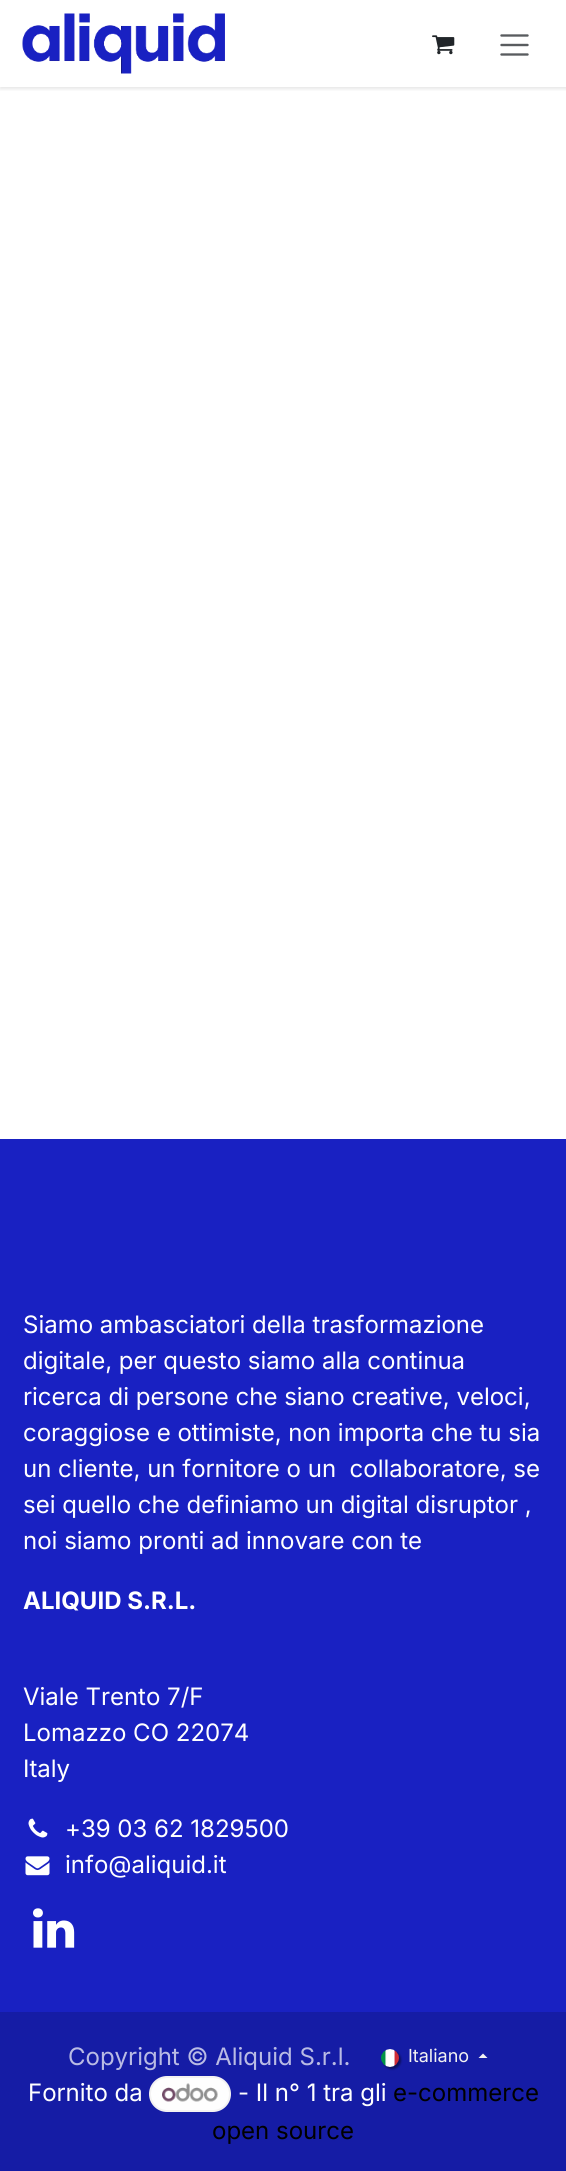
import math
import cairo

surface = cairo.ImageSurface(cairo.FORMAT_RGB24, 566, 2171)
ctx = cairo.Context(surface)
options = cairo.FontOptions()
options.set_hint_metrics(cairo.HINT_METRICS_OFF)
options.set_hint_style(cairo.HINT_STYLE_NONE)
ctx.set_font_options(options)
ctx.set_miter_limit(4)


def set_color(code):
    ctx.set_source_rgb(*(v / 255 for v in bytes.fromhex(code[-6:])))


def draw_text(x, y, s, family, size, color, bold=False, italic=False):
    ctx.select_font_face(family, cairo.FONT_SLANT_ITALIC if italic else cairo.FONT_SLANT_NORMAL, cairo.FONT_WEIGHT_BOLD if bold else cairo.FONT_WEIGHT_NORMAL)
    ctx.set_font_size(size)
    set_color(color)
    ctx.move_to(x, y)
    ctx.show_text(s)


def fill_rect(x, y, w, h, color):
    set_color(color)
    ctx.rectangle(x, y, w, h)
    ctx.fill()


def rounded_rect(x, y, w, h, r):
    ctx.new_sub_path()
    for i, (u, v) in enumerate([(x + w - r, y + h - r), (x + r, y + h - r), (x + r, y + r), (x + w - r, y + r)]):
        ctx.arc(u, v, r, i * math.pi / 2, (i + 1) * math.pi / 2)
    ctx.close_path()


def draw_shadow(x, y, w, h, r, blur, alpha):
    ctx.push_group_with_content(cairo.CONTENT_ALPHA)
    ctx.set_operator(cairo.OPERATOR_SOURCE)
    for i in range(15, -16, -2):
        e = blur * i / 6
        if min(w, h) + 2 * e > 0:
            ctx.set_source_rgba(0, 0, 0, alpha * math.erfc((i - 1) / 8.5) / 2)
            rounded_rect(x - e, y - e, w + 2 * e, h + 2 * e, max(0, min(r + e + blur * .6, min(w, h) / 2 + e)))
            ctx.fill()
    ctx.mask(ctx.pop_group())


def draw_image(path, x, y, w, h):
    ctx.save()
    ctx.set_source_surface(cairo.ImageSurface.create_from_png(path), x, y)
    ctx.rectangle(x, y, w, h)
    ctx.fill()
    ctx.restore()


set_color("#ffffff")
ctx.paint()
ctx.save()
ctx.rectangle(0, 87, 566, 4)
ctx.clip()
set_color("#000000")
draw_shadow(0, 2, 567, 87, 0, 2, 0.1)
ctx.restore()
draw_image("assets/img1.png", 22, 13, 203, 61)
draw_image("assets/img2.png", 432, 35, 23, 20)
ctx.new_path()
ctx.move_to(501.5, 35.5)
ctx.line_to(527.5, 35.5)
ctx.move_to(501.5, 45)
ctx.line_to(527.5, 45)
ctx.move_to(501.5, 54.5)
ctx.line_to(527.5, 54.5)
set_color("#595c5f")
ctx.set_line_width(2.4)
ctx.set_line_cap(cairo.LINE_CAP_ROUND)
ctx.stroke()
fill_rect(0, 1139, 566, 873, "#1921c2")
draw_text(23, 1333, "Siamo ambasciatori della trasformazione", "Inter", 24, "#ffffff")
draw_text(23, 1369, "digitale, per questo siamo alla continua", "Inter", 24, "#ffffff")
draw_text(23, 1405, "ricerca di persone che siano creative, veloci,", "Inter", 24, "#ffffff")
draw_text(23, 1441, "coraggiose e ottimiste, non importa che tu sia", "Inter", 24, "#ffffff")
draw_text(23, 1477, "un cliente, un fornitore o un  collaboratore, se", "Inter", 24, "#ffffff")
draw_text(23, 1513, "sei quello che definiamo un digital disruptor ,", "Inter", 24, "#ffffff")
draw_text(23, 1549, "noi siamo pronti ad innovare con te", "Inter", 24, "#ffffff")
draw_text(23, 1609, "ALIQUID S.R.L.", "Inter", 24, "#ffffff", bold=True)
draw_text(23, 1705, "Viale Trento 7/F", "Inter", 24, "#ffffff")
draw_text(23, 1741, "Lomazzo CO 22074", "Inter", 24, "#ffffff")
draw_text(23, 1777, "Italy", "Inter", 24, "#ffffff")
draw_image("assets/img3.png", 28, 1818, 20, 20)
draw_text(65, 1837, "+39 03 62 1829500", "Inter", 24, "#ffffff")
draw_image("assets/img4.png", 25, 1856, 25, 20)
draw_text(65, 1873, "info@aliquid.it", "Inter", 24, "#ffffff")
draw_image("assets/img5.png", 33, 1908, 42, 40)
fill_rect(0, 2012, 566, 159, "#151ca5")
draw_text(68, 2065, "Copyright © Aliquid S.r.l.", "Inter", 24, "#b9bbe4")
set_color("#000000")
draw_shadow(383, 2051, 18, 18, 9, 1, 0.43)
draw_text(408, 2062, "Italiano", "Inter", 18, "#f3f2f2")
draw_image("assets/img6.png", 381, 2049, 18, 18)
ctx.new_path()
ctx.move_to(487.5, 2058)
ctx.line_to(478.5, 2058)
ctx.line_to(483, 2053.5)
ctx.close_path()
ctx.fill()
draw_text(28, 2101, "Fornito da", "Inter", 24, "#ffffff")
set_color("#fefefe")
rounded_rect(150, 2077, 80, 34, 17)
ctx.fill_preserve()
set_color("#f3f2f2")
ctx.set_line_width(2)
ctx.set_line_cap(cairo.LINE_CAP_BUTT)
ctx.stroke()
draw_image("assets/img7.png", 162, 2083, 56, 19)
draw_text(238, 2101, "- Il n° 1 tra gli", "Inter", 24, "#ffffff")
draw_text(393, 2101, "e-commerce", "Inter", 24, "#000000")
draw_text(212, 2139, "open source", "Inter", 24, "#000000")
surface.write_to_png("output.png")
